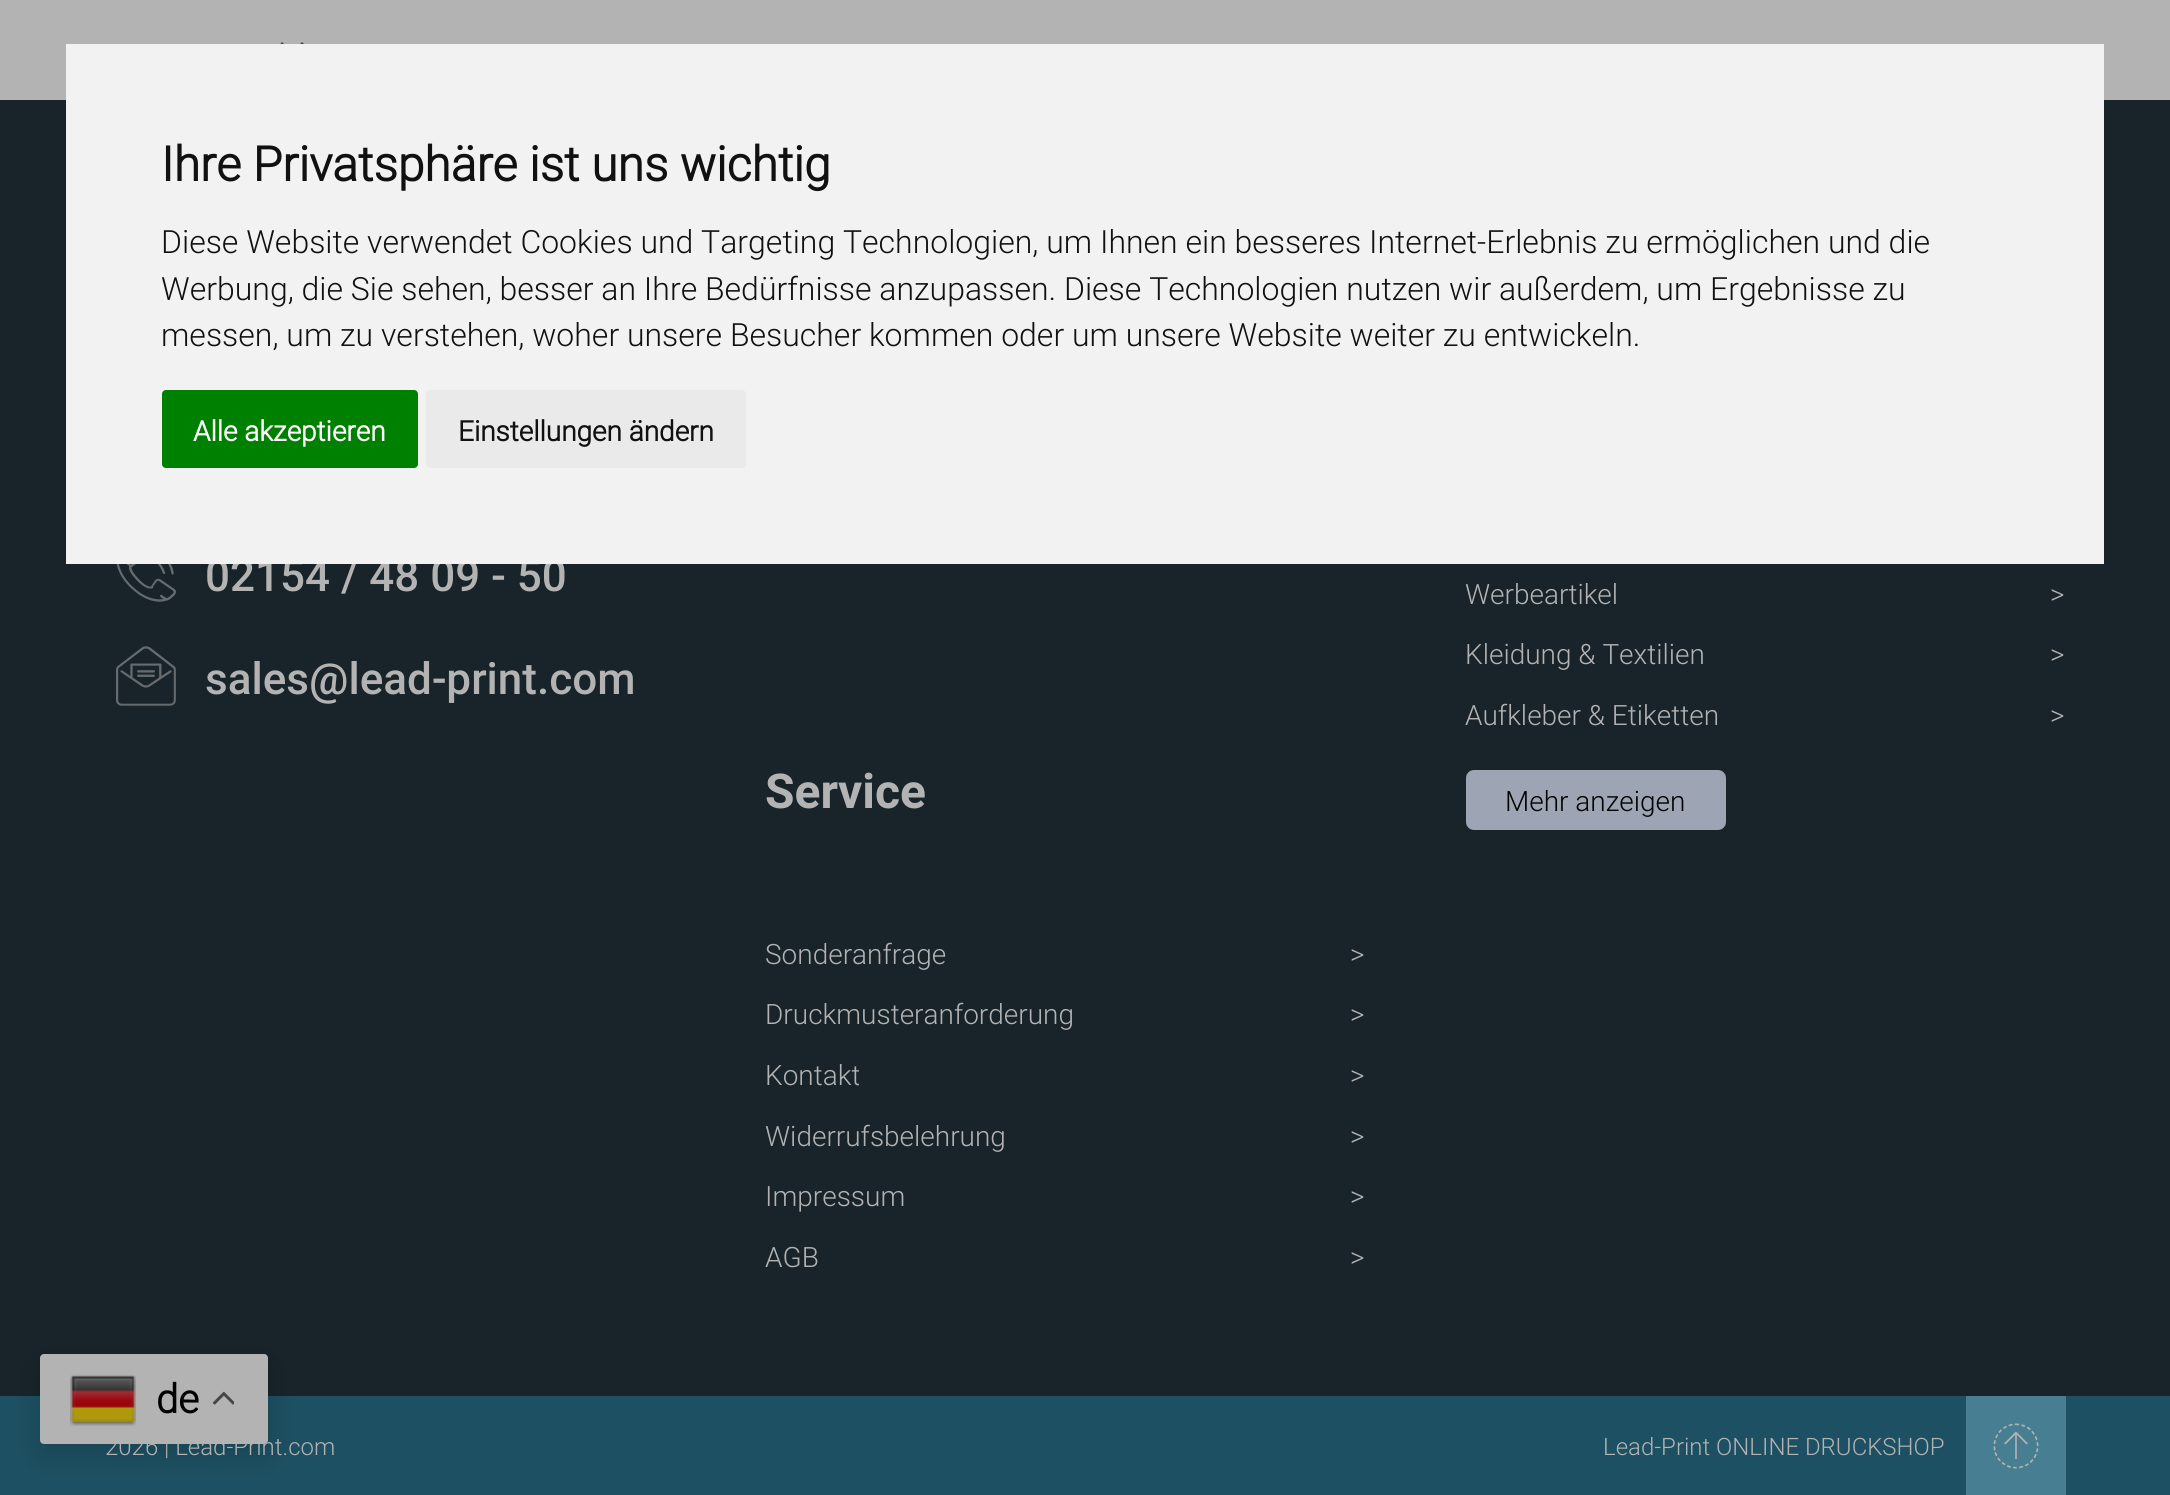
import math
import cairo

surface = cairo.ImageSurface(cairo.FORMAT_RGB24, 2170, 1495)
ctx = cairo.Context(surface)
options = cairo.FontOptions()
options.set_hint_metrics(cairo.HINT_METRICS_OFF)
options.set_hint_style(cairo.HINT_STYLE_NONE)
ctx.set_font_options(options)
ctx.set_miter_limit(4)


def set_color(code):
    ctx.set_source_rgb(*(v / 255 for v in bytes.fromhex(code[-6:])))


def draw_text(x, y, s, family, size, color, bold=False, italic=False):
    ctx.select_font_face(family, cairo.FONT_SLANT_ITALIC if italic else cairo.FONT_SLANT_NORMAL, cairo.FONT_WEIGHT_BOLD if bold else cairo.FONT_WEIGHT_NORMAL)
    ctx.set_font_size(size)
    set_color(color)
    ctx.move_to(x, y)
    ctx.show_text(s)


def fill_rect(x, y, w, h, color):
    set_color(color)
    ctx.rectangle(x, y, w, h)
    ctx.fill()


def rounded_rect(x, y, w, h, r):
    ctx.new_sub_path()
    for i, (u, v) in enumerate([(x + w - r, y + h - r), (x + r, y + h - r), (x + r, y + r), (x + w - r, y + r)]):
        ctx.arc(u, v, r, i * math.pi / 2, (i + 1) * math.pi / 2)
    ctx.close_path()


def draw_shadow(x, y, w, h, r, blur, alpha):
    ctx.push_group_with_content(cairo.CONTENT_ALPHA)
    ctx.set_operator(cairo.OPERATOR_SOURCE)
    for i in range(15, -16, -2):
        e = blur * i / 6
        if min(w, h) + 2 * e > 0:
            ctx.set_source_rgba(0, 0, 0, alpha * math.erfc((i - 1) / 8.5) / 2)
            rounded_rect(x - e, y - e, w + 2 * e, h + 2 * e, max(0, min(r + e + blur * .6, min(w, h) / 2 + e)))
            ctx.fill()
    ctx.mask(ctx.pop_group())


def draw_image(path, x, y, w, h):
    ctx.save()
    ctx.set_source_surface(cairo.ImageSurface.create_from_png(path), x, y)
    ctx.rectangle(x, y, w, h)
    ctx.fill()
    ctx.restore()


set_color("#182429")
ctx.paint()
fill_rect(0, 0, 2170, 100, "#b3b3b3")
set_color("#1d5062")
ctx.new_path()
ctx.move_to(282, 42)
ctx.line_to(295, 55)
ctx.line_to(292, 58)
ctx.line_to(279.5, 45)
ctx.close_path()
ctx.fill()
ctx.new_path()
ctx.move_to(289.5, 55)
ctx.line_to(302, 42)
ctx.line_to(305, 45)
ctx.line_to(292, 58)
ctx.close_path()
ctx.fill()
draw_text(205, 591, "02154 / 48 09 - 50", "Roboto Medium", 44, "#b3b3b3")
fill_rect(66, 44, 2038, 520, "#f2f2f2")
draw_text(161, 181, "Ihre Privatsphäre ist uns wichtig", "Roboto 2", 48, "#111111", bold=True)
draw_text(161, 253, "Diese Website verwendet Cookies und Targeting Technologien, um Ihnen ein besseres Internet-Erlebnis zu ermöglichen und die", "Roboto Light", 32, "#111111")
draw_text(161, 300, "Werbung, die Sie sehen, besser an Ihre Bedürfnisse anzupassen. Diese Technologien nutzen wir außerdem, um Ergebnisse zu", "Roboto Light", 32, "#111111")
draw_text(161, 346, "messen, um zu verstehen, woher unsere Besucher kommen oder um unsere Website weiter zu entwickeln.", "Roboto Light", 32, "#111111")
set_color("#008000")
rounded_rect(162, 390, 256, 78, 4)
ctx.fill()
draw_text(193, 441, "Alle akzeptieren", "Roboto 2", 28, "#ffffff", bold=True)
set_color("#eaeaea")
rounded_rect(426, 390, 320, 78, 4)
ctx.fill()
draw_text(458, 441, "Einstellungen ändern", "Roboto 2", 28, "#111111", bold=True)
draw_image("assets/img1.png", 116, 564, 60, 38)
draw_image("assets/img2.png", 116, 646, 60, 60)
draw_text(205, 694, "sales@lead-print.com", "Roboto Medium", 44, "#b3b3b3")
draw_text(1465, 604, "Werbeartikel", "Roboto Light", 28, "#b3b3b3")
draw_text(2050, 604, ">", "Roboto Light", 28, "#b3b3b3")
draw_text(1465, 664, "Kleidung & Textilien", "Roboto Light", 28, "#b3b3b3")
draw_text(2050, 664, ">", "Roboto Light", 28, "#b3b3b3")
draw_text(1465, 725, "Aufkleber & Etiketten", "Roboto Light", 28, "#b3b3b3")
draw_text(2050, 725, ">", "Roboto Light", 28, "#b3b3b3")
set_color("#9da4b3")
rounded_rect(1466, 770, 260, 60, 8)
ctx.fill()
draw_text(1505, 811, "Mehr anzeigen", "Roboto Light", 28, "#000000")
draw_text(765, 808, "Service", "Roboto", 48, "#b3b3b3", bold=True)
draw_text(765, 964, "Sonderanfrage", "Roboto Light", 28, "#b3b3b3")
draw_text(1350, 964, ">", "Roboto Light", 28, "#b3b3b3")
draw_text(765, 1024, "Druckmusteranforderung", "Roboto Light", 28, "#b3b3b3")
draw_text(1350, 1024, ">", "Roboto Light", 28, "#b3b3b3")
draw_text(765, 1085, "Kontakt", "Roboto Light", 28, "#b3b3b3")
draw_text(1350, 1085, ">", "Roboto Light", 28, "#b3b3b3")
draw_text(765, 1146, "Widerrufsbelehrung", "Roboto Light", 28, "#b3b3b3")
draw_text(1350, 1146, ">", "Roboto Light", 28, "#b3b3b3")
draw_text(765, 1206, "Impressum", "Roboto Light", 28, "#b3b3b3")
draw_text(1350, 1206, ">", "Roboto Light", 28, "#b3b3b3")
draw_text(765, 1267, "AGB", "Roboto Light", 28, "#b3b3b3")
draw_text(1350, 1267, ">", "Roboto Light", 28, "#b3b3b3")
fill_rect(0, 1396, 2170, 99, "#1d5062")
set_color("#000000")
draw_shadow(40, 1364, 228, 90, 4, 15, 0.15)
set_color("#b3b3b3")
rounded_rect(40, 1354, 228, 90, 4)
ctx.fill()
draw_image("assets/img3.png", 70, 1374, 66, 52)
draw_text(156, 1413, "de", "Roboto 2", 40, "#000000", bold=True)
draw_image("assets/img4.png", 212, 1391, 22, 14)
fill_rect(1966, 1396, 100, 99, "#477e92")
draw_image("assets/img5.png", 1993, 1423, 46, 46)
draw_text(105, 1455, "2026 | Lead-Print.com", "Roboto Light", 24, "#b3b3b3")
draw_text(1603, 1455, "Lead-Print ONLINE DRUCKSHOP", "Roboto Light", 24, "#b3b3b3")
surface.write_to_png("output.png")
